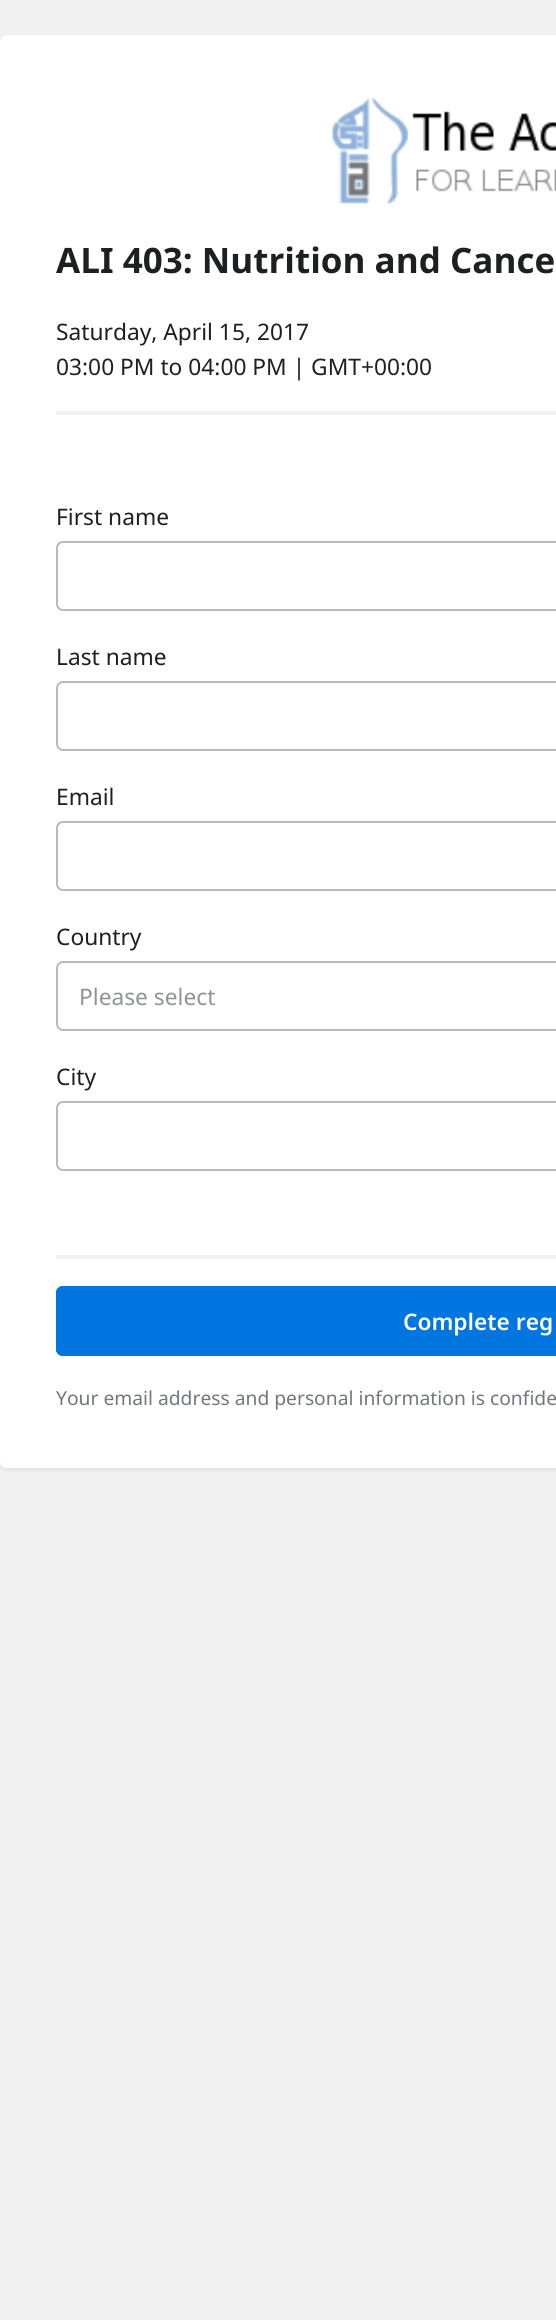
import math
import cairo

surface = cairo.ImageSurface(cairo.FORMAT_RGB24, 556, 2320)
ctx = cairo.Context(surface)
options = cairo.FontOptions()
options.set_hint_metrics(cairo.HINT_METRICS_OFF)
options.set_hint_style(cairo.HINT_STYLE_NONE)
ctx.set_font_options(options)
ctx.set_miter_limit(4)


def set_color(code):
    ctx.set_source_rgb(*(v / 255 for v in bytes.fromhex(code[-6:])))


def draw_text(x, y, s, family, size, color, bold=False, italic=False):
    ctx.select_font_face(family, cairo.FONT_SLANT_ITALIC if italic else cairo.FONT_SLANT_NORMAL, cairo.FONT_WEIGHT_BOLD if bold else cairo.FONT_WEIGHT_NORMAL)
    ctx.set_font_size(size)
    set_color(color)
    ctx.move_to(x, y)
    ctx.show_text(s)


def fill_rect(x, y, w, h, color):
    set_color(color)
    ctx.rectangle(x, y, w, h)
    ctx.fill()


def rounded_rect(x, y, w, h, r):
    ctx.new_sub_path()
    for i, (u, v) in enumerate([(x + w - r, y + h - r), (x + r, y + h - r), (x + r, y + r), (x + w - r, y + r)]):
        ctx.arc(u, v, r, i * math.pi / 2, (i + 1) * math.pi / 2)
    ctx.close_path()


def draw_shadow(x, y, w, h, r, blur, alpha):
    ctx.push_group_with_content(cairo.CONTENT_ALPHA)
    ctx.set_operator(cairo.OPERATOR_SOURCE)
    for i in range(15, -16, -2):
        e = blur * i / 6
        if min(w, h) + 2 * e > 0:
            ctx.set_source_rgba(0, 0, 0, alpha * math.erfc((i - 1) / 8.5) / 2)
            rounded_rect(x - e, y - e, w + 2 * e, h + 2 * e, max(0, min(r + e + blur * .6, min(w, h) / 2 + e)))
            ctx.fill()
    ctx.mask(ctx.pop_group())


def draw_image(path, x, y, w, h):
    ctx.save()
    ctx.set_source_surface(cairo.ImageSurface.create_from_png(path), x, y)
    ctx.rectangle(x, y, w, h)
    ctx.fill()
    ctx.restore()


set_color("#f1f1f2")
ctx.paint()
set_color("#000000")
draw_shadow(0, 37, 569, 1433, 7, 2, 0.08)
set_color("#ffffff")
ctx.new_path()
ctx.move_to(7, 35)
ctx.line_to(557, 35)
ctx.line_to(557, 1468)
ctx.line_to(7, 1468)
ctx.curve_to(3, 1468, 0, 1465, 0, 1461)
ctx.line_to(0, 42)
ctx.curve_to(0, 38, 3, 35, 7, 35)
ctx.close_path()
ctx.fill()
draw_image("assets/img1.png", 332, 97, 224, 107)
draw_text(56, 273, "ALI 403: Nutrition and Cance", "Noto Sans", 35, "#1e1f21", bold=True)
draw_text(56, 340, "Saturday, April 15, 2017", "Noto Sans", 22.75, "#1e1f21")
draw_text(56, 375, "03:00 PM to 04:00 PM | GMT+00:00", "Noto Sans", 22.75, "#1e1f21")
fill_rect(56, 411, 500, 4, "#f1f1f2")
draw_text(56, 525, "First name", "Noto Sans", 22.75, "#1e1f21")
rounded_rect(57, 542, 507, 68, 6)
set_color("#b9babd")
ctx.stroke()
draw_text(56, 665, "Last name", "Noto Sans", 22.75, "#1e1f21")
rounded_rect(57, 682, 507, 68, 6)
set_color("#b9babd")
ctx.stroke()
draw_text(56, 805, "Email", "Noto Sans", 22.75, "#1e1f21")
rounded_rect(57, 822, 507, 68, 6)
set_color("#b9babd")
ctx.stroke()
draw_text(56, 945, "Country", "Noto Sans", 22.75, "#1e1f21")
rounded_rect(57, 962, 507, 68, 6)
set_color("#b9babd")
ctx.stroke()
draw_text(79, 1005, "Please select", "Noto Sans", 22.75, "#909398")
draw_text(56, 1085, "City", "Noto Sans", 22.75, "#1e1f21")
rounded_rect(57, 1102, 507, 68, 6)
set_color("#b9babd")
ctx.stroke()
fill_rect(56, 1255, 500, 4, "#f1f1f2")
set_color("#0175e0")
ctx.new_path()
ctx.move_to(63, 1286)
ctx.line_to(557, 1286)
ctx.line_to(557, 1356)
ctx.line_to(63, 1356)
ctx.curve_to(59, 1356, 56, 1353, 56, 1349)
ctx.line_to(56, 1293)
ctx.curve_to(56, 1289, 59, 1286, 63, 1286)
ctx.close_path()
ctx.fill()
rounded_rect(57, 1287, 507, 68, 6)
ctx.stroke()
draw_text(403, 1330, "Complete reg", "Noto Sans SemiBold", 22.75, "#ffffff")
draw_text(56, 1405, "Your email address and personal information is confide", "Noto Sans", 19.25, "#73767d")
surface.write_to_png("output.png")
